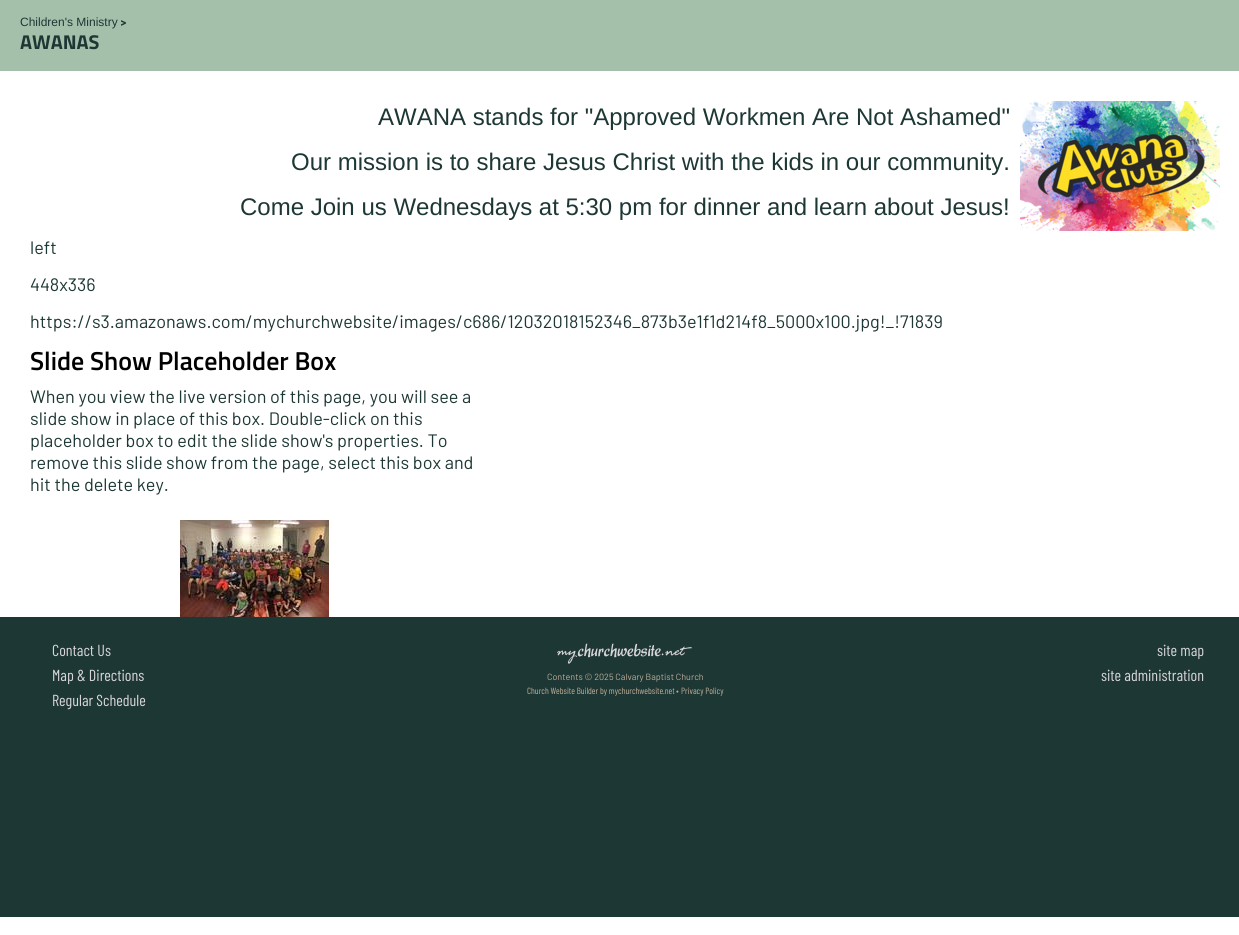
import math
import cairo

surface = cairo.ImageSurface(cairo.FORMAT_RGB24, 1239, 935)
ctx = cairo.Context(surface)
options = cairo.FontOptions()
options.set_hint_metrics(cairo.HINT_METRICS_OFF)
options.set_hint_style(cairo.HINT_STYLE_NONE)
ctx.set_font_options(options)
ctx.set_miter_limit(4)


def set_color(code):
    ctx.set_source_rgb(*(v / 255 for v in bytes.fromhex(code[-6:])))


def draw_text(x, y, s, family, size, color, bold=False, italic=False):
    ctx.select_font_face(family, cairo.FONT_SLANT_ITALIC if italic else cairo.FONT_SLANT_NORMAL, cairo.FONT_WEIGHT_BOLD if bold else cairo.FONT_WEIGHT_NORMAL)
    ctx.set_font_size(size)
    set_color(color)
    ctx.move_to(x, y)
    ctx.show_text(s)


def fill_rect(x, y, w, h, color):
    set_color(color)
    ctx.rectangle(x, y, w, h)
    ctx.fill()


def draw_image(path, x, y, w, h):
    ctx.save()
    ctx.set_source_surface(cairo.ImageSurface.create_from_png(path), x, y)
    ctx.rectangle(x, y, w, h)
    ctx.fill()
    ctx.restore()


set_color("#ffffff")
ctx.paint()
fill_rect(0, 0, 1239, 71, "#a4c0aa")
draw_text(20, 26, "Children's Ministry", "Liberation Sans", 12, "#1d3734")
draw_text(120, 26, ">", "Sunflower", 12, "#1d3734", bold=True)
draw_text(20, 49, "AWANAS", "Sunflower", 20, "#1d3734", bold=True)
draw_text(378, 125, "AWANA stands for \"Approved Workmen Are Not Ashamed\"", "Liberation Sans", 24, "#1d3734")
draw_image("assets/img1.png", 1020, 101, 200, 130)
draw_text(291, 170, "Our mission is to share Jesus Christ with the kids in our community.", "Liberation Sans", 24, "#1d3734")
draw_text(240, 215, "Come Join us Wednesdays at 5:30 pm for dinner and learn about Jesus!", "Liberation Sans", 24, "#1d3734")
draw_text(30, 254, "left", "Barlow", 18, "#1d3734")
draw_text(30, 291, "448x336", "Barlow", 18, "#1d3734")
draw_text(30, 328, "https://s3.amazonaws.com/mychurchwebsite/images/c686/12032018152346_873b3e1f1d214f8_5000x100.jpg!_!71839", "Barlow", 18, "#1d3734")
draw_text(30, 370, "Slide Show Placeholder Box", "Sunflower Medium", 26, "#000000")
draw_text(30, 403, "When you view the live version of this page, you will see a", "Barlow", 18, "#1d3734")
draw_text(30, 425, "slide show in place of this box. Double-click on this", "Barlow", 18, "#1d3734")
draw_text(30, 447, "placeholder box to edit the slide show's properties. To", "Barlow", 18, "#1d3734")
draw_text(30, 469, "remove this slide show from the page, select this box and", "Barlow", 18, "#1d3734")
draw_text(30, 491, "hit the delete key.", "Barlow", 18, "#1d3734")
draw_image("assets/img2.png", 180, 520, 149, 97)
fill_rect(0, 617, 1239, 300, "#1d3734")
draw_text(52, 656, "Contact Us", "Barlow Condensed", 16, "#d7d5d8")
draw_text(52, 681, "Map & Directions", "Barlow Condensed", 16, "#d7d5d8")
draw_text(52, 706, "Regular Schedule", "Barlow Condensed", 16, "#d7d5d8")
draw_text(1157, 656, "site map", "Barlow Condensed", 16, "#d7d5d8")
draw_text(1101, 681, "site administration", "Barlow Condensed", 16, "#d7d5d8")
draw_image("assets/img3.png", 557, 643, 135, 21)
draw_text(547, 680, "Contents © 2025 Calvary Baptist Church", "Barlow", 9, "#bfad99")
draw_text(527, 694, "Church Website Builder by mychurchwebsite.net", "Barlow Condensed", 9, "#bfad99")
draw_text(676, 694, "•", "Barlow", 9, "#bfad99")
draw_text(681, 694, "Privacy Policy", "Barlow Condensed", 9, "#bfad99")
surface.write_to_png("output.png")
